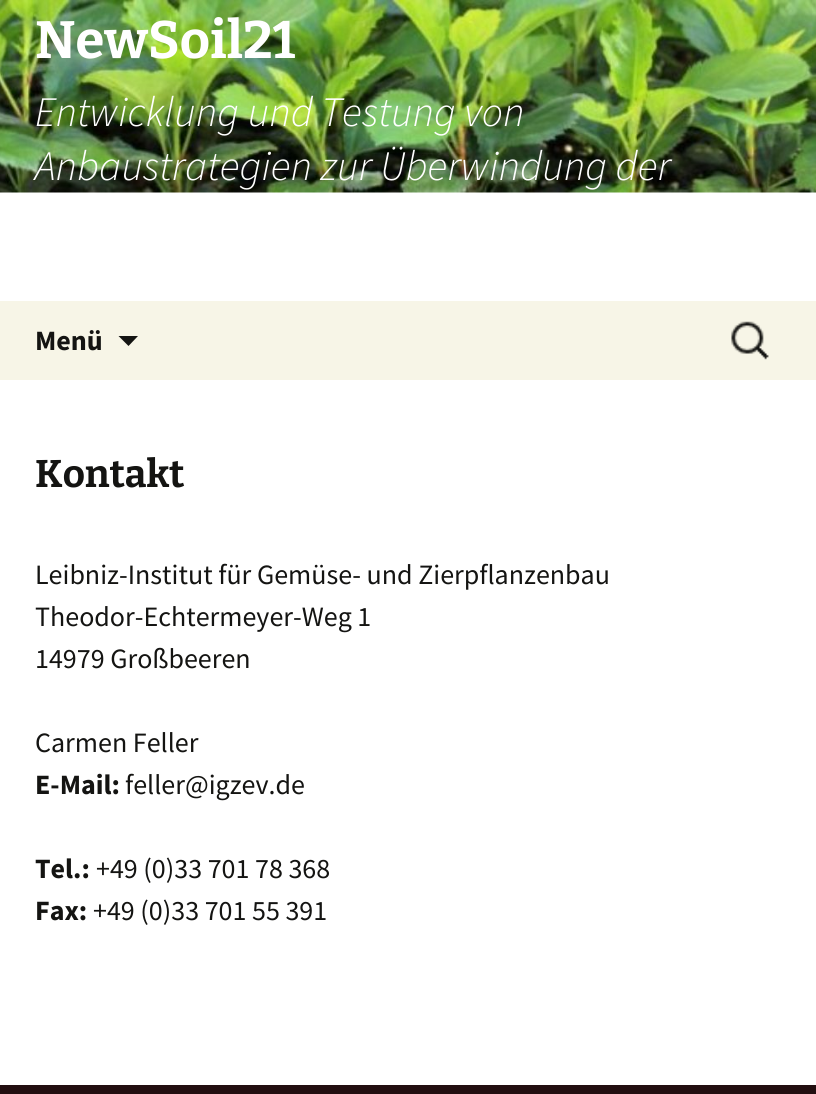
import math
import cairo

surface = cairo.ImageSurface(cairo.FORMAT_RGB24, 816, 1094)
ctx = cairo.Context(surface)
options = cairo.FontOptions()
options.set_hint_metrics(cairo.HINT_METRICS_OFF)
options.set_hint_style(cairo.HINT_STYLE_NONE)
ctx.set_font_options(options)
ctx.set_miter_limit(4)


def set_color(code):
    ctx.set_source_rgb(*(v / 255 for v in bytes.fromhex(code[-6:])))


def draw_text(x, y, s, family, size, color, bold=False, italic=False):
    ctx.select_font_face(family, cairo.FONT_SLANT_ITALIC if italic else cairo.FONT_SLANT_NORMAL, cairo.FONT_WEIGHT_BOLD if bold else cairo.FONT_WEIGHT_NORMAL)
    ctx.set_font_size(size)
    set_color(color)
    ctx.move_to(x, y)
    ctx.show_text(s)


def fill_rect(x, y, w, h, color):
    set_color(color)
    ctx.rectangle(x, y, w, h)
    ctx.fill()


def draw_image(path, x, y, w, h):
    ctx.save()
    ctx.set_source_surface(cairo.ImageSurface.create_from_png(path), x, y)
    ctx.rectangle(x, y, w, h)
    ctx.fill()
    ctx.restore()


set_color("#ffffff")
ctx.paint()
draw_image("assets/img1.png", 0, 0, 816, 193)
draw_text(35, 58, "NewSoil21", "Bitter", 52.5, "#ffffff", bold=True)
draw_text(35, 126, "Entwicklung und Testung von", "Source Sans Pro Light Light", 42, "#ffffff", italic=True)
draw_text(35, 180, "Anbaustrategien zur Überwindung der", "Source Sans Pro Light Light", 42, "#ffffff", italic=True)
fill_rect(0, 301, 816, 79, "#f7f5e7")
draw_text(35, 350, "Menü", "Source Sans Pro", 28, "#141412", bold=True)
ctx.new_path()
ctx.move_to(118.5, 336)
ctx.line_to(128.5, 346)
ctx.line_to(138, 336)
ctx.close_path()
ctx.fill()
draw_image("assets/img2.png", 731, 321, 38, 39)
draw_text(35, 487, "Kontakt", "Bitter", 38.5, "#141412", bold=True)
draw_text(35, 584, "Leibniz-Institut für Gemüse- und Zierpflanzenbau", "Source Sans Pro", 28, "#141412")
draw_text(35, 626, "Theodor-Echtermeyer-Weg 1", "Source Sans Pro", 28, "#141412")
draw_text(35, 668, "14979 Großbeeren", "Source Sans Pro", 28, "#141412")
draw_text(35, 752, "Carmen Feller", "Source Sans Pro", 28, "#141412")
draw_text(35, 794, "E-Mail:", "Source Sans Pro", 28, "#141412", bold=True)
draw_text(125, 794, "feller@igzev.de", "Source Sans Pro", 28, "#141412")
draw_text(35, 878, "Tel.:", "Source Sans Pro", 28, "#141412", bold=True)
draw_text(96, 878, "+49 (0)33 701 78 368", "Source Sans Pro", 28, "#141412")
draw_text(35, 920, "Fax:", "Source Sans Pro", 28, "#141412", bold=True)
draw_text(93, 920, "+49 (0)33 701 55 391", "Source Sans Pro", 28, "#141412")
fill_rect(0, 1085, 816, 9, "#220e10")
surface.write_to_png("output.png")
